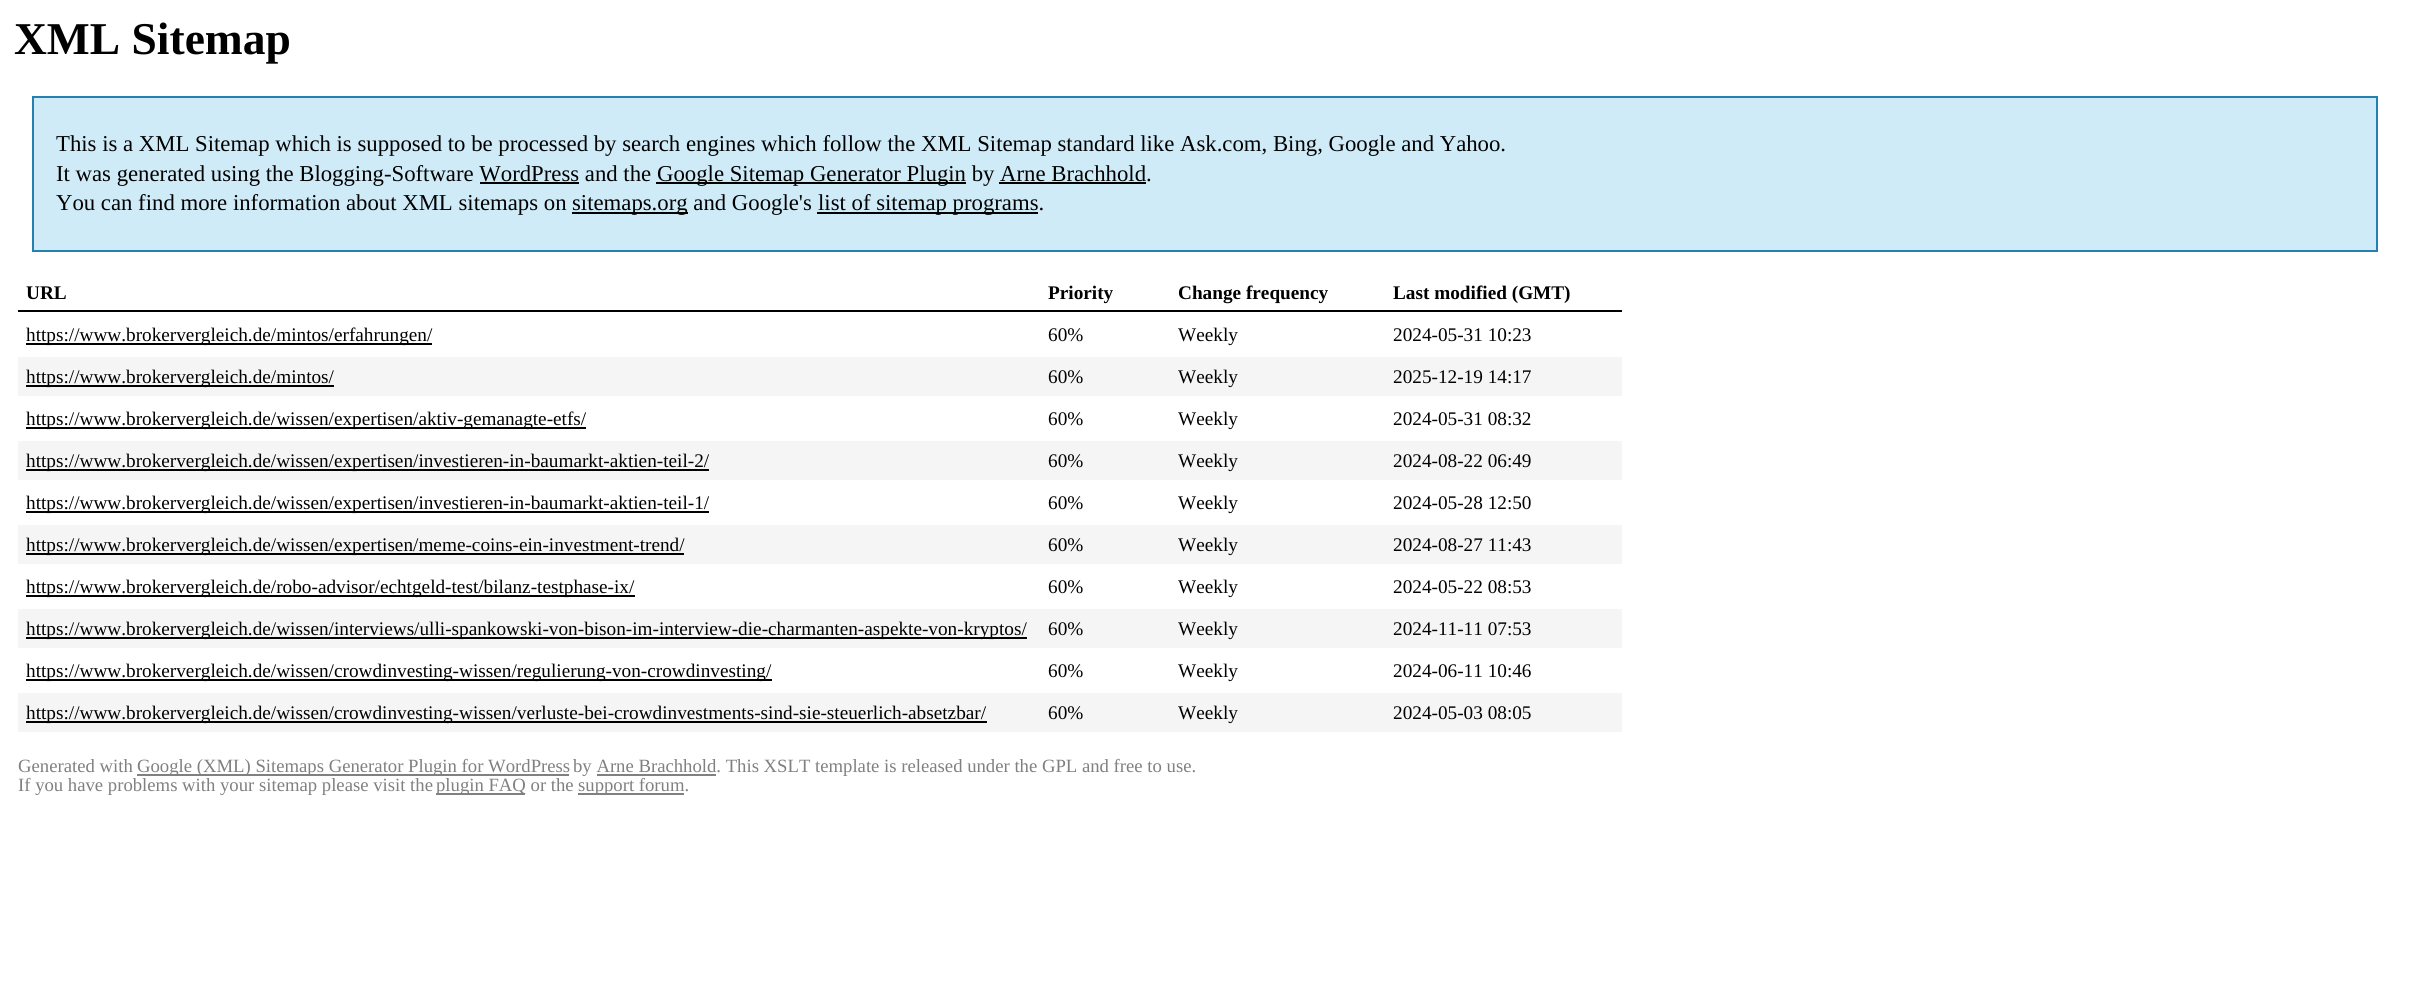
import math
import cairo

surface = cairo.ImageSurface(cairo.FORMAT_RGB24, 2409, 1002)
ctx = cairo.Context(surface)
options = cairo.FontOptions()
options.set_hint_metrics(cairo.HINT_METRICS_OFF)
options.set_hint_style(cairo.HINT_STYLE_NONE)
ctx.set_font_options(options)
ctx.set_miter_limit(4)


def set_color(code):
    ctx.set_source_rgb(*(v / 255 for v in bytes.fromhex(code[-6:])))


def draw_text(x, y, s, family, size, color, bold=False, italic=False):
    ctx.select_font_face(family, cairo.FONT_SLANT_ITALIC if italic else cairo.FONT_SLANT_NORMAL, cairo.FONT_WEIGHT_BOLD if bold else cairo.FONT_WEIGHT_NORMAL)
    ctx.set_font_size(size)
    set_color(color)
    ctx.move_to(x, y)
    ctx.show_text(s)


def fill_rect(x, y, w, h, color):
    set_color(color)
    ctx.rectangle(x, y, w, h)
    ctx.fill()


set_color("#ffffff")
ctx.paint()
draw_text(14, 54, "XML Sitemap", "Liberation Serif", 45.5, "#000000", bold=True)
set_color("#cfebf7")
ctx.rectangle(33, 97, 2344, 154)
ctx.fill_preserve()
set_color("#2580b2")
ctx.stroke()
draw_text(56, 151, "This is a XML Sitemap which is supposed to be processed by search engines which follow the XML Sitemap standard like Ask.com, Bing, Google and Yahoo.", "Liberation Serif", 22.75, "#000000")
draw_text(56, 181, "It was generated using the Blogging-Software WordPress and the", "Liberation Serif", 22.75, "#000000")
fill_rect(656, 182, 310, 2, "#000000")
draw_text(657, 181, "Google Sitemap Generator Plugin by Arne Brachhold.", "Liberation Serif", 22.75, "#000000")
fill_rect(480, 182, 99, 2, "#000000")
fill_rect(999, 182, 147, 2, "#000000")
draw_text(56, 210, "You can find more information about XML sitemaps on", "Liberation Serif", 22.75, "#000000")
fill_rect(572, 212, 116, 2, "#000000")
draw_text(572, 210, "sitemaps.org and Google's", "Liberation Serif", 22.75, "#000000")
fill_rect(817, 212, 221, 2, "#000000")
draw_text(818, 210, "list of sitemap programs.", "Liberation Serif", 22.75, "#000000")
fill_rect(18, 310, 1604, 2, "#000000")
draw_text(26, 299, "URL", "Liberation Serif", 19.25, "#000000", bold=True)
draw_text(1048, 299, "Priority", "Liberation Serif", 19.25, "#000000", bold=True)
draw_text(1178, 299, "Change frequency", "Liberation Serif", 19.25, "#000000", bold=True)
draw_text(1393, 299, "Last modified (GMT)", "Liberation Serif", 19.25, "#000000", bold=True)
fill_rect(26, 343, 406, 2, "#000000")
draw_text(26, 341, "https://www.brokervergleich.de/mintos/erfahrungen/", "Liberation Serif", 19.25, "#000000")
draw_text(1048, 341, "60%", "Liberation Serif", 19.25, "#000000")
draw_text(1178, 341, "Weekly", "Liberation Serif", 19.25, "#000000")
draw_text(1393, 341, "2024-05-31 10:23", "Liberation Serif", 19.25, "#000000")
fill_rect(18, 357, 1604, 39, "#f5f5f5")
fill_rect(26, 385, 308, 2, "#000000")
draw_text(26, 383, "https://www.brokervergleich.de/mintos/", "Liberation Serif", 19.25, "#000000")
draw_text(1048, 383, "60%", "Liberation Serif", 19.25, "#000000")
draw_text(1178, 383, "Weekly", "Liberation Serif", 19.25, "#000000")
draw_text(1393, 383, "2025-12-19 14:17", "Liberation Serif", 19.25, "#000000")
fill_rect(26, 427, 560, 2, "#000000")
draw_text(26, 425, "https://www.brokervergleich.de/wissen/expertisen/aktiv-gemanagte-etfs/", "Liberation Serif", 19.25, "#000000")
draw_text(1048, 425, "60%", "Liberation Serif", 19.25, "#000000")
draw_text(1178, 425, "Weekly", "Liberation Serif", 19.25, "#000000")
draw_text(1393, 425, "2024-05-31 08:32", "Liberation Serif", 19.25, "#000000")
fill_rect(18, 441, 1604, 39, "#f5f5f5")
fill_rect(26, 469, 683, 2, "#000000")
draw_text(26, 467, "https://www.brokervergleich.de/wissen/expertisen/investieren-in-baumarkt-aktien-teil-2/", "Liberation Serif", 19.25, "#000000")
draw_text(1048, 467, "60%", "Liberation Serif", 19.25, "#000000")
draw_text(1178, 467, "Weekly", "Liberation Serif", 19.25, "#000000")
draw_text(1393, 467, "2024-08-22 06:49", "Liberation Serif", 19.25, "#000000")
fill_rect(26, 511, 683, 2, "#000000")
draw_text(26, 509, "https://www.brokervergleich.de/wissen/expertisen/investieren-in-baumarkt-aktien-teil-1/", "Liberation Serif", 19.25, "#000000")
draw_text(1048, 509, "60%", "Liberation Serif", 19.25, "#000000")
draw_text(1178, 509, "Weekly", "Liberation Serif", 19.25, "#000000")
draw_text(1393, 509, "2024-05-28 12:50", "Liberation Serif", 19.25, "#000000")
fill_rect(18, 525, 1604, 39, "#f5f5f5")
fill_rect(26, 553, 658, 2, "#000000")
draw_text(26, 551, "https://www.brokervergleich.de/wissen/expertisen/meme-coins-ein-investment-trend/", "Liberation Serif", 19.25, "#000000")
draw_text(1048, 551, "60%", "Liberation Serif", 19.25, "#000000")
draw_text(1178, 551, "Weekly", "Liberation Serif", 19.25, "#000000")
draw_text(1393, 551, "2024-08-27 11:43", "Liberation Serif", 19.25, "#000000")
fill_rect(26, 595, 609, 2, "#000000")
draw_text(26, 593, "https://www.brokervergleich.de/robo-advisor/echtgeld-test/bilanz-testphase-ix/", "Liberation Serif", 19.25, "#000000")
draw_text(1048, 593, "60%", "Liberation Serif", 19.25, "#000000")
draw_text(1178, 593, "Weekly", "Liberation Serif", 19.25, "#000000")
draw_text(1393, 593, "2024-05-22 08:53", "Liberation Serif", 19.25, "#000000")
fill_rect(18, 609, 1604, 39, "#f5f5f5")
fill_rect(26, 637, 1001, 2, "#000000")
draw_text(26, 635, "https://www.brokervergleich.de/wissen/interviews/ulli-spankowski-von-bison-im-interview-die-charmanten-aspekte-von-kryptos/", "Liberation Serif", 19.25, "#000000")
draw_text(1048, 635, "60%", "Liberation Serif", 19.25, "#000000")
draw_text(1178, 635, "Weekly", "Liberation Serif", 19.25, "#000000")
draw_text(1393, 635, "2024-11-11 07:53", "Liberation Serif", 19.25, "#000000")
fill_rect(26, 679, 746, 2, "#000000")
draw_text(26, 677, "https://www.brokervergleich.de/wissen/crowdinvesting-wissen/regulierung-von-crowdinvesting/", "Liberation Serif", 19.25, "#000000")
draw_text(1048, 677, "60%", "Liberation Serif", 19.25, "#000000")
draw_text(1178, 677, "Weekly", "Liberation Serif", 19.25, "#000000")
draw_text(1393, 677, "2024-06-11 10:46", "Liberation Serif", 19.25, "#000000")
fill_rect(18, 693, 1604, 39, "#f5f5f5")
fill_rect(26, 721, 961, 2, "#000000")
draw_text(26, 719, "https://www.brokervergleich.de/wissen/crowdinvesting-wissen/verluste-bei-crowdinvestments-sind-sie-steuerlich-absetzbar/", "Liberation Serif", 19.25, "#000000")
draw_text(1048, 719, "60%", "Liberation Serif", 19.25, "#000000")
draw_text(1178, 719, "Weekly", "Liberation Serif", 19.25, "#000000")
draw_text(1393, 719, "2024-05-03 08:05", "Liberation Serif", 19.25, "#000000")
draw_text(18, 772, "Generated with", "Liberation Serif", 18.7, "#808080")
fill_rect(137, 774, 432, 2, "#808080")
draw_text(137, 772, "Google (XML) Sitemaps Generator Plugin for WordPress", "Liberation Serif", 18.7, "#808080")
draw_text(573, 772, "by Arne Brachhold. This XSLT template is released under the GPL and free to use.", "Liberation Serif", 18.7, "#808080")
fill_rect(597, 774, 119, 2, "#808080")
draw_text(18, 791, "If you have problems with your sitemap please visit the", "Liberation Serif", 18.7, "#808080")
fill_rect(436, 793, 89, 2, "#808080")
draw_text(436, 791, "plugin FAQ or the", "Liberation Serif", 18.7, "#808080")
fill_rect(578, 793, 106, 2, "#808080")
draw_text(578, 791, "support forum.", "Liberation Serif", 18.7, "#808080")
surface.write_to_png("output.png")
